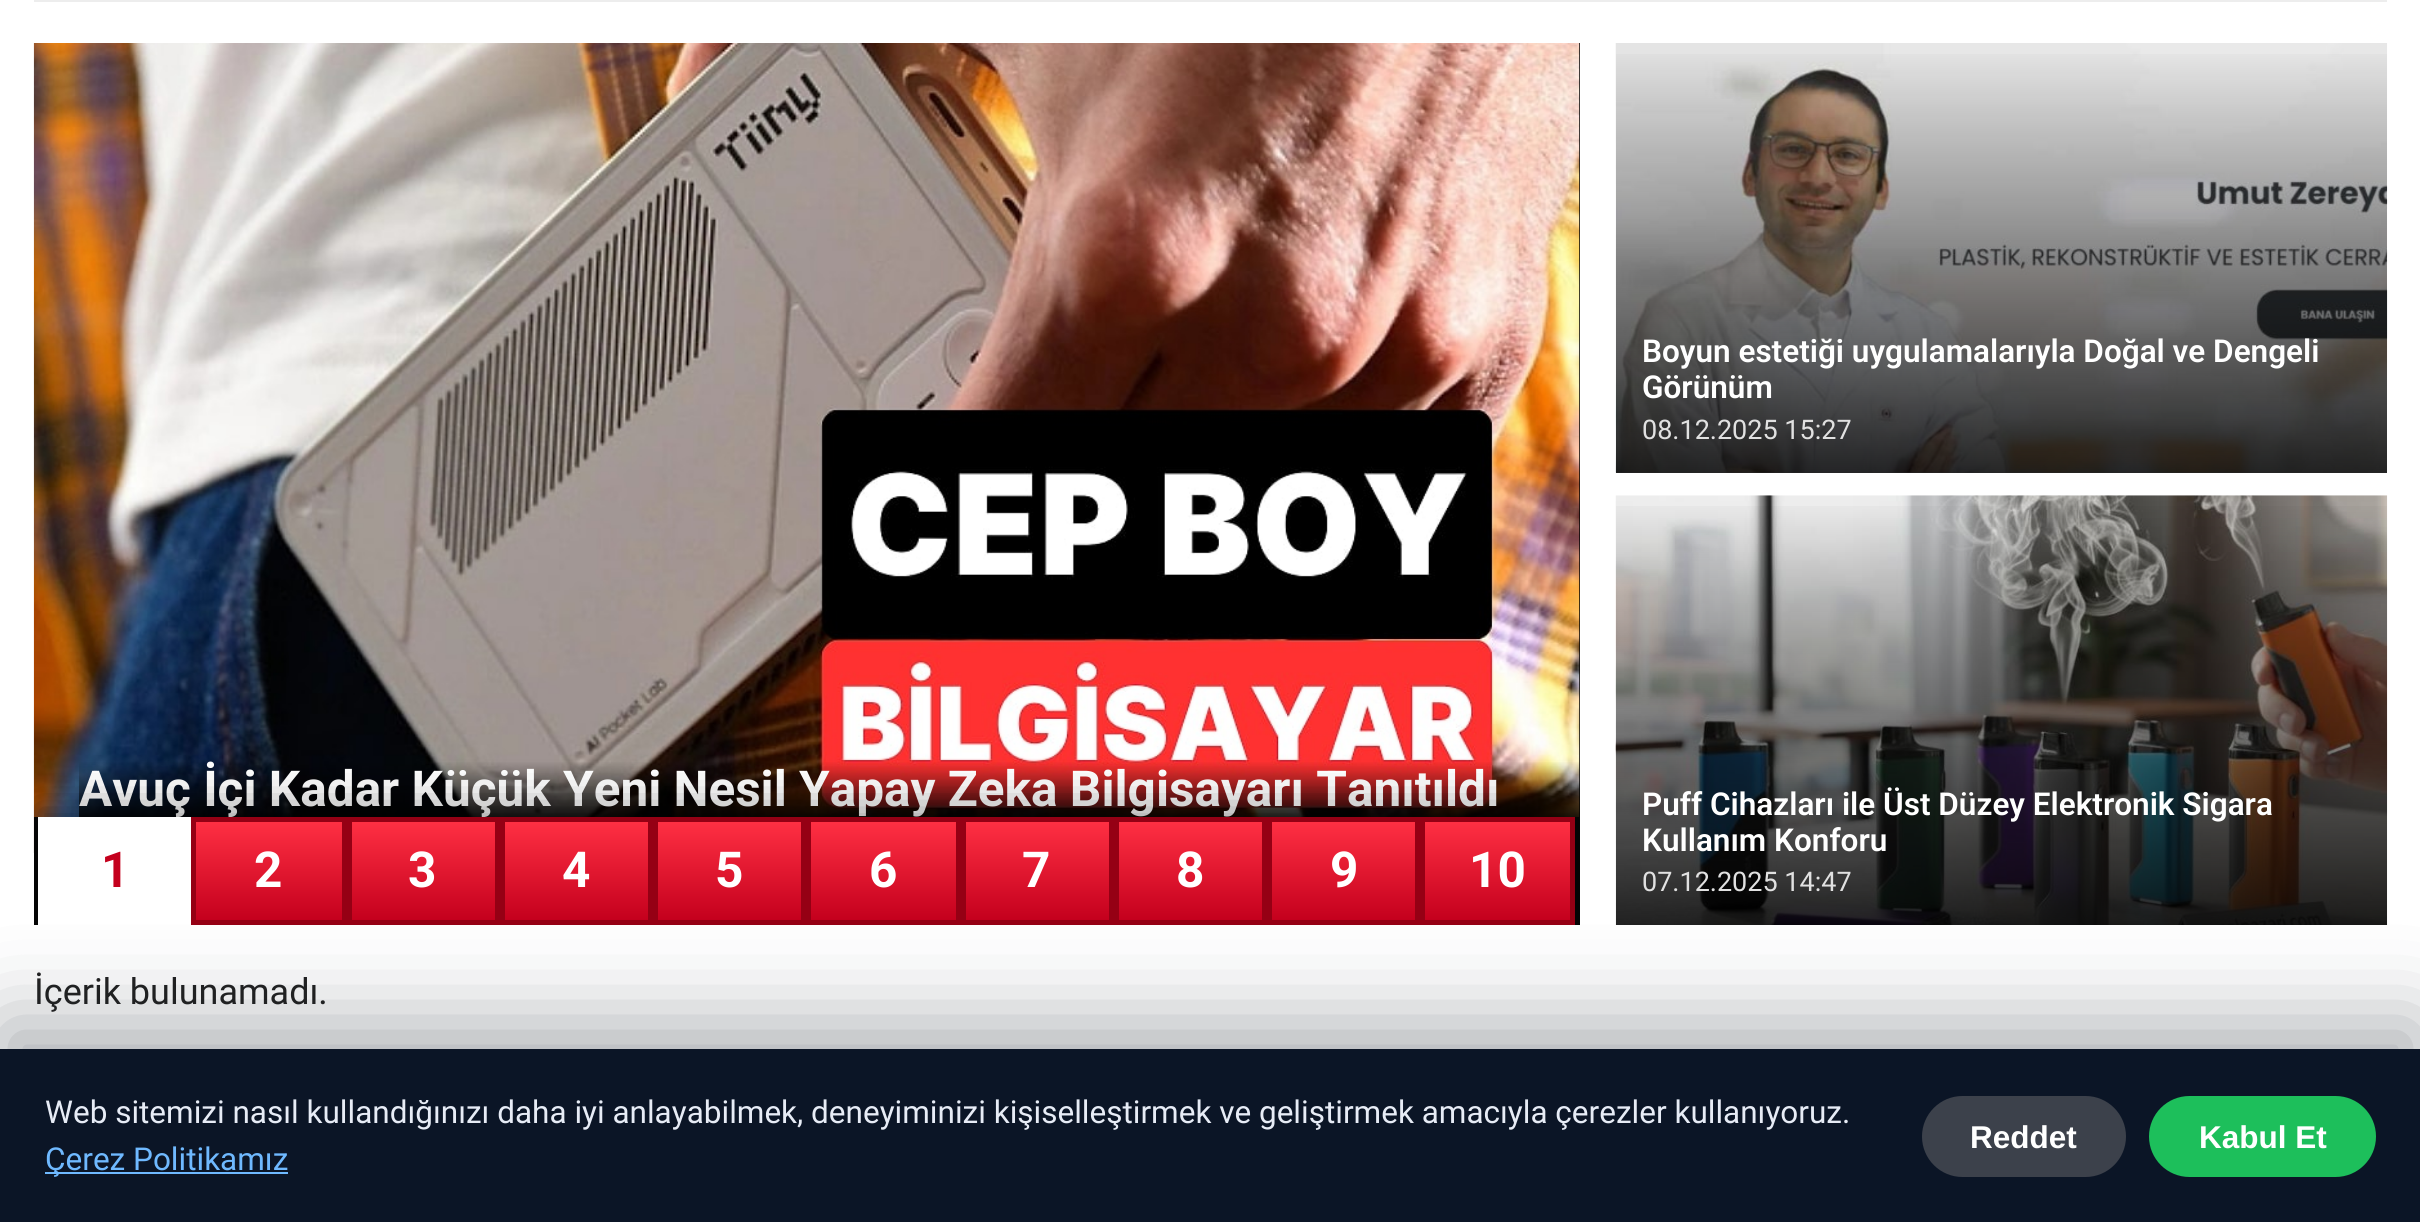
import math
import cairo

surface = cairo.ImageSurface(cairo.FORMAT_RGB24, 2420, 1222)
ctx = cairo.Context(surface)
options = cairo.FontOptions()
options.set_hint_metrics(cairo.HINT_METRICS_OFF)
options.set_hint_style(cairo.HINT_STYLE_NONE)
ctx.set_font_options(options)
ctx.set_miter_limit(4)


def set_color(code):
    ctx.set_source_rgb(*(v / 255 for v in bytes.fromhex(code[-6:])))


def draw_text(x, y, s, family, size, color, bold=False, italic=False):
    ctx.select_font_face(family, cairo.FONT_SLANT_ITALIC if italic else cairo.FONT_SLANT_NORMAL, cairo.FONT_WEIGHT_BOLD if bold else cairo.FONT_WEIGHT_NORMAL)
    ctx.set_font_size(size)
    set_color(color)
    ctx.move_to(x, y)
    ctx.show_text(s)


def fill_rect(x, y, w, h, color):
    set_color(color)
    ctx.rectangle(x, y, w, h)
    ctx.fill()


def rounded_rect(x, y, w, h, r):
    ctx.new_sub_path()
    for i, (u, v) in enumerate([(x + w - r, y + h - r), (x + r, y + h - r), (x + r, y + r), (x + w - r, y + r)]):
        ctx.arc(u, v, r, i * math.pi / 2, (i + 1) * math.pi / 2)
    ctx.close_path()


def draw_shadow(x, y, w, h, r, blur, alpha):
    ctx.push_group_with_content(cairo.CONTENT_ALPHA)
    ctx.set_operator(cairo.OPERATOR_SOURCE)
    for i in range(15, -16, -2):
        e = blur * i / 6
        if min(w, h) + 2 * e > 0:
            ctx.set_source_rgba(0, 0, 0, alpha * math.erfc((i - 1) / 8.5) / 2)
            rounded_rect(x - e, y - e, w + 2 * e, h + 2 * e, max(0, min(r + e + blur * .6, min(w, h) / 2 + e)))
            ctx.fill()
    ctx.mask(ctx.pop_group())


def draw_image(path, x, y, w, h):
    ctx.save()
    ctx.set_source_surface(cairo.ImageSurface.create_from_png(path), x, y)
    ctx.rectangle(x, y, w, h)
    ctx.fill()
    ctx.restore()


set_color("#ffffff")
ctx.paint()
fill_rect(34, 0, 2353, 2, "#ededed")
fill_rect(1579, 43, 1, 774, "#000000")
draw_image("assets/img1.png", 33, 43, 1547, 810)
gradient = cairo.LinearGradient(829, 817, 829, 761)
gradient.add_color_stop_rgba(0, 0, 0, 0, 0.85)
gradient.add_color_stop_rgba(1, 0, 0, 0, 0)
ctx.set_source(gradient)
ctx.rectangle(79, 762, 1501, 55)
ctx.fill()
draw_text(79, 806, "Avuç İçi Kadar Küçük Yeni Nesil Yapay Zeka Bilgisayarı Tanıtıldı", "Roboto", 49.5, "#ffffff", bold=True)
draw_image("assets/img3.png", 1615, 495, 773, 430)
gradient = cairo.LinearGradient(2001, 925, 2001, 495)
gradient.add_color_stop_rgba(0, 0, 0, 0, 0.85)
gradient.add_color_stop_rgba(1, 0, 0, 0, 0)
ctx.set_source(gradient)
ctx.rectangle(1616, 506, 771, 419)
ctx.fill()
ctx.save()
ctx.rectangle(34, 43, 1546, 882)
ctx.clip()
set_color("#000000")
draw_shadow(34, 803, 1546, 108, 0, 20, 0.35)
ctx.restore()
fill_rect(34, 817, 1546, 108, "#050505")
fill_rect(38, 817, 153, 108, "#ffffff")
draw_text(101, 887, "1", "Roboto", 49.5, "#c4001d", bold=True)
gradient = cairo.LinearGradient(269, 821, 269, 920)
gradient.add_color_stop_rgba(0, 1, 0.188, 0.263, 1)
gradient.add_color_stop_rgba(1, 0.769, 0, 0.114, 1)
ctx.set_source(gradient)
ctx.rectangle(196, 822, 146, 98)
ctx.fill()
ctx.rectangle(193.5, 819.5, 151, 103)
set_color("#950014")
ctx.set_line_width(5)
ctx.stroke()
draw_text(254, 887, "2", "Roboto", 49.5, "#ffffff", bold=True)
gradient = cairo.LinearGradient(423, 821, 423, 920)
gradient.add_color_stop_rgba(0, 1, 0.188, 0.263, 1)
gradient.add_color_stop_rgba(1, 0.769, 0, 0.114, 1)
ctx.set_source(gradient)
ctx.rectangle(352, 822, 143, 98)
ctx.fill()
ctx.rectangle(349.5, 819.5, 148, 103)
set_color("#950014")
ctx.stroke()
draw_text(408, 887, "3", "Roboto", 49.5, "#ffffff", bold=True)
gradient = cairo.LinearGradient(576, 821, 576, 920)
gradient.add_color_stop_rgba(0, 1, 0.188, 0.263, 1)
gradient.add_color_stop_rgba(1, 0.769, 0, 0.114, 1)
ctx.set_source(gradient)
ctx.rectangle(505, 822, 143, 98)
ctx.fill()
ctx.rectangle(502.5, 819.5, 148, 103)
set_color("#950014")
ctx.stroke()
draw_text(562, 887, "4", "Roboto", 49.5, "#ffffff", bold=True)
gradient = cairo.LinearGradient(729, 821, 729, 920)
gradient.add_color_stop_rgba(0, 1, 0.188, 0.263, 1)
gradient.add_color_stop_rgba(1, 0.769, 0, 0.114, 1)
ctx.set_source(gradient)
ctx.rectangle(658, 822, 143, 98)
ctx.fill()
ctx.rectangle(655.5, 819.5, 148, 103)
set_color("#950014")
ctx.stroke()
draw_text(715, 887, "5", "Roboto", 49.5, "#ffffff", bold=True)
gradient = cairo.LinearGradient(883, 821, 883, 920)
gradient.add_color_stop_rgba(0, 1, 0.188, 0.263, 1)
gradient.add_color_stop_rgba(1, 0.769, 0, 0.114, 1)
ctx.set_source(gradient)
ctx.rectangle(811, 822, 145, 98)
ctx.fill()
ctx.rectangle(808.5, 819.5, 150, 103)
set_color("#950014")
ctx.stroke()
draw_text(869, 887, "6", "Roboto", 49.5, "#ffffff", bold=True)
gradient = cairo.LinearGradient(1037, 821, 1037, 920)
gradient.add_color_stop_rgba(0, 1, 0.188, 0.263, 1)
gradient.add_color_stop_rgba(1, 0.769, 0, 0.114, 1)
ctx.set_source(gradient)
ctx.rectangle(966, 822, 143, 98)
ctx.fill()
ctx.rectangle(963.5, 819.5, 148, 103)
set_color("#950014")
ctx.stroke()
draw_text(1022, 887, "7", "Roboto", 49.5, "#ffffff", bold=True)
gradient = cairo.LinearGradient(1190, 821, 1190, 920)
gradient.add_color_stop_rgba(0, 1, 0.188, 0.263, 1)
gradient.add_color_stop_rgba(1, 0.769, 0, 0.114, 1)
ctx.set_source(gradient)
ctx.rectangle(1119, 822, 143, 98)
ctx.fill()
ctx.rectangle(1116.5, 819.5, 148, 103)
set_color("#950014")
ctx.stroke()
draw_text(1176, 887, "8", "Roboto", 49.5, "#ffffff", bold=True)
gradient = cairo.LinearGradient(1343, 821, 1343, 920)
gradient.add_color_stop_rgba(0, 1, 0.188, 0.263, 1)
gradient.add_color_stop_rgba(1, 0.769, 0, 0.114, 1)
ctx.set_source(gradient)
ctx.rectangle(1272, 822, 143, 98)
ctx.fill()
ctx.rectangle(1269.5, 819.5, 148, 103)
set_color("#950014")
ctx.stroke()
draw_text(1330, 887, "9", "Roboto", 49.5, "#ffffff", bold=True)
gradient = cairo.LinearGradient(1497, 821, 1497, 920)
gradient.add_color_stop_rgba(0, 1, 0.188, 0.263, 1)
gradient.add_color_stop_rgba(1, 0.769, 0, 0.114, 1)
ctx.set_source(gradient)
ctx.rectangle(1425, 822, 145, 98)
ctx.fill()
ctx.rectangle(1422.5, 819.5, 150, 103)
set_color("#950014")
ctx.stroke()
draw_text(1469, 887, "10", "Roboto", 49.5, "#ffffff", bold=True)
draw_image("assets/img2.png", 1615, 43, 773, 430)
gradient = cairo.LinearGradient(2001, 473, 2001, 43)
gradient.add_color_stop_rgba(0, 0, 0, 0, 0.85)
gradient.add_color_stop_rgba(1, 0, 0, 0, 0)
ctx.set_source(gradient)
ctx.rectangle(1616, 54, 771, 419)
ctx.fill()
draw_text(1642, 362, "Boyun estetiği uygulamalarıyla Doğal ve Dengeli", "Roboto SemiBold", 31.5, "#ffffff")
draw_text(1642, 398, "Görünüm", "Roboto SemiBold", 31.5, "#ffffff")
draw_text(1642, 439, "08.12.2025 15:27", "Roboto", 27, "#e1e1e1")
draw_text(1642, 815, "Puff Cihazları ile Üst Düzey Elektronik Sigara", "Roboto SemiBold", 31.5, "#ffffff")
draw_text(1642, 851, "Kullanım Konforu", "Roboto SemiBold", 31.5, "#ffffff")
draw_text(1642, 891, "07.12.2025 14:47", "Roboto", 27, "#e1e1e1")
draw_text(34, 1004, "İçerik bulunamadı.", "Roboto", 36, "#222222")
set_color("#0c1522")
draw_shadow(0, 1022, 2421, 175, 0, 45, 0.35)
fill_rect(0, 1049, 2420, 173, "#0b1526")
draw_text(45, 1123, "Web sitemizi nasıl kullandığınızı daha iyi anlayabilmek, deneyiminizi kişiselleştirmek ve geliştirmek amacıyla çerezler kullanıyoruz.", "Roboto", 31.5, "#e7ecf6")
fill_rect(45, 1172, 243, 2, "#6fb9ff")
draw_text(45, 1170, "Çerez Politikamız", "Roboto", 31.5, "#6fb9ff")
set_color("#3c414b")
rounded_rect(1922, 1096, 204, 81, 40.5)
ctx.fill()
draw_text(1970, 1148, "Reddet", "Liberation Sans", 31.5, "#ffffff", bold=True)
set_color("#1dbf5b")
rounded_rect(2149, 1096, 227, 81, 40.5)
ctx.fill()
draw_text(2199, 1148, "Kabul Et", "Liberation Sans", 31.5, "#ffffff", bold=True)
surface.write_to_png("output.png")
